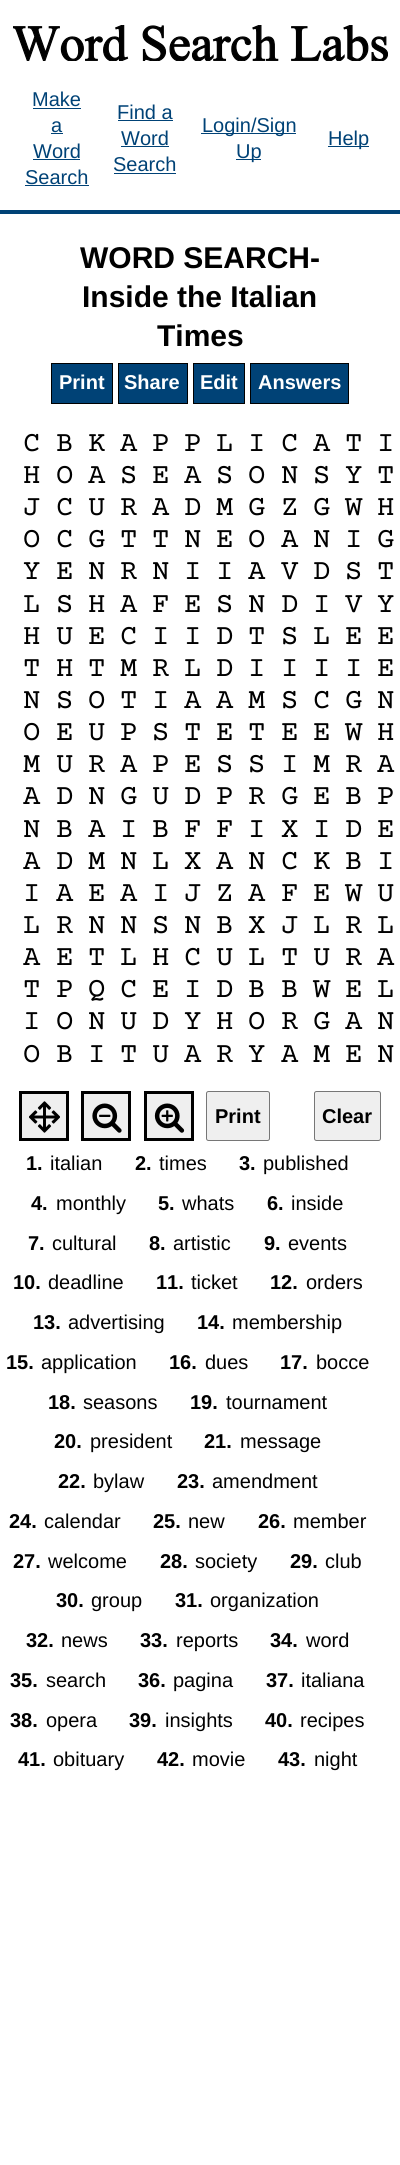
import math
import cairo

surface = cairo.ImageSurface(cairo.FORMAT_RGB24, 400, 2165)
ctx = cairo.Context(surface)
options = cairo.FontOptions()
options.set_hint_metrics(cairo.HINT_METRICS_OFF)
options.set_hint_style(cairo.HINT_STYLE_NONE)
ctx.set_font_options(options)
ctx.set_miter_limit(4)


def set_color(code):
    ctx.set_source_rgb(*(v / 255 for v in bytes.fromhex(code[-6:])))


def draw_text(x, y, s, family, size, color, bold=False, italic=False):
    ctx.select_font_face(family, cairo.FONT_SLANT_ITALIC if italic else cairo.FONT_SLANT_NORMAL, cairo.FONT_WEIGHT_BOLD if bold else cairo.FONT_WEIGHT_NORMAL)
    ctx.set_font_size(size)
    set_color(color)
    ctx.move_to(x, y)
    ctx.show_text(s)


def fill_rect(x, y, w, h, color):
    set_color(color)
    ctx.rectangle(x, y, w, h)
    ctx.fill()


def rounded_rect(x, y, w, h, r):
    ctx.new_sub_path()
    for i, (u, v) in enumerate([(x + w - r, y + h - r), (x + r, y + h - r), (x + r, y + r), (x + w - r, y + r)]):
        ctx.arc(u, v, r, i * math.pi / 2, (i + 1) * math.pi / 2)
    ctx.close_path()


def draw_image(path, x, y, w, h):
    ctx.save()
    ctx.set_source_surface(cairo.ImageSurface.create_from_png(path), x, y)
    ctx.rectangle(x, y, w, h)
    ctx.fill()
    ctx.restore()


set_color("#ffffff")
ctx.paint()
draw_image("assets/img1.png", 13, 25, 375, 36)
draw_text(32, 106, "Make", "Liberation Sans", 20, "#004276")
fill_rect(33, 108, 48, 1, "#004276")
draw_text(51, 132, "a", "Liberation Sans", 20, "#004276")
fill_rect(51, 133, 12, 1, "#004276")
draw_text(33, 158, "Word", "Liberation Sans", 20, "#004276")
fill_rect(33, 159, 47, 1, "#004276")
draw_text(25, 184, "Search", "Liberation Sans", 20, "#004276")
fill_rect(25, 185, 64, 1, "#004276")
draw_text(117, 119, "Find a", "Liberation Sans", 20, "#004276")
fill_rect(118, 120, 55, 1, "#004276")
draw_text(121, 145, "Word", "Liberation Sans", 20, "#004276")
fill_rect(121, 146, 48, 1, "#004276")
draw_text(113, 171, "Search", "Liberation Sans", 20, "#004276")
fill_rect(114, 173, 62, 1, "#004276")
fill_rect(201, 133, 95, 1, "#004276")
draw_text(202, 132, "Login/Sign", "Liberation Sans", 20, "#004276")
fill_rect(236, 159, 25, 1, "#004276")
draw_text(236, 158, "Up", "Liberation Sans", 20, "#004276")
fill_rect(328, 146, 41, 1, "#004276")
draw_text(328, 145, "Help", "Liberation Sans", 20, "#004276")
fill_rect(0, 210, 400, 4, "#004276")
draw_text(80, 268, "WORD SEARCH-", "Liberation Sans", 30, "#000000", bold=True)
draw_text(82, 307, "Inside the Italian", "Liberation Sans", 30, "#000000", bold=True)
draw_text(157, 346, "Times", "Liberation Sans", 30, "#000000", bold=True)
set_color("#004276")
ctx.rectangle(51.5, 363.5, 61, 40)
ctx.fill_preserve()
set_color("#000000")
ctx.set_line_width(1)
ctx.stroke()
draw_text(59, 389, "Print", "Liberation Sans", 20, "#ffffff", bold=True)
set_color("#004276")
ctx.rectangle(118.5, 363.5, 69, 40)
ctx.fill_preserve()
set_color("#000000")
ctx.stroke()
draw_text(124, 389, "Share", "Liberation Sans", 20, "#ffffff", bold=True)
set_color("#004276")
ctx.rectangle(193.5, 363.5, 51, 40)
ctx.fill_preserve()
set_color("#000000")
ctx.stroke()
draw_text(200, 389, "Edit", "Liberation Sans", 20, "#ffffff", bold=True)
set_color("#004276")
ctx.rectangle(250.5, 363.5, 98, 40)
ctx.fill_preserve()
set_color("#000000")
ctx.stroke()
draw_text(258, 389, "Answers", "Liberation Sans", 20, "#ffffff", bold=True)
draw_text(23, 451, "C", "Courier Prime", 29, "#000000")
draw_text(56, 451, "B", "Courier Prime", 29, "#000000")
draw_text(88, 451, "K", "Courier Prime", 29, "#000000")
draw_text(120, 451, "A", "Courier Prime", 29, "#000000")
draw_text(152, 451, "P", "Courier Prime", 29, "#000000")
draw_text(184, 451, "P", "Courier Prime", 29, "#000000")
draw_text(216, 451, "L", "Courier Prime", 29, "#000000")
draw_text(248, 451, "I", "Courier Prime", 29, "#000000")
draw_text(281, 451, "C", "Courier Prime", 29, "#000000")
draw_text(313, 451, "A", "Courier Prime", 29, "#000000")
draw_text(345, 451, "T", "Courier Prime", 29, "#000000")
draw_text(377, 451, "I", "Courier Prime", 29, "#000000")
draw_text(23, 483, "H", "Courier Prime", 29, "#000000")
draw_text(56, 483, "O", "Courier Prime", 29, "#000000")
draw_text(88, 483, "A", "Courier Prime", 29, "#000000")
draw_text(120, 483, "S", "Courier Prime", 29, "#000000")
draw_text(152, 483, "E", "Courier Prime", 29, "#000000")
draw_text(184, 483, "A", "Courier Prime", 29, "#000000")
draw_text(216, 483, "S", "Courier Prime", 29, "#000000")
draw_text(248, 483, "O", "Courier Prime", 29, "#000000")
draw_text(281, 483, "N", "Courier Prime", 29, "#000000")
draw_text(313, 483, "S", "Courier Prime", 29, "#000000")
draw_text(345, 483, "Y", "Courier Prime", 29, "#000000")
draw_text(377, 483, "T", "Courier Prime", 29, "#000000")
draw_text(23, 515, "J", "Courier Prime", 29, "#000000")
draw_text(56, 515, "C", "Courier Prime", 29, "#000000")
draw_text(88, 515, "U", "Courier Prime", 29, "#000000")
draw_text(120, 515, "R", "Courier Prime", 29, "#000000")
draw_text(152, 515, "A", "Courier Prime", 29, "#000000")
draw_text(184, 515, "D", "Courier Prime", 29, "#000000")
draw_text(216, 515, "M", "Courier Prime", 29, "#000000")
draw_text(248, 515, "G", "Courier Prime", 29, "#000000")
draw_text(281, 515, "Z", "Courier Prime", 29, "#000000")
draw_text(313, 515, "G", "Courier Prime", 29, "#000000")
draw_text(345, 515, "W", "Courier Prime", 29, "#000000")
draw_text(377, 515, "H", "Courier Prime", 29, "#000000")
draw_text(23, 547, "O", "Courier Prime", 29, "#000000")
draw_text(56, 547, "C", "Courier Prime", 29, "#000000")
draw_text(88, 547, "G", "Courier Prime", 29, "#000000")
draw_text(120, 547, "T", "Courier Prime", 29, "#000000")
draw_text(152, 547, "T", "Courier Prime", 29, "#000000")
draw_text(184, 547, "N", "Courier Prime", 29, "#000000")
draw_text(216, 547, "E", "Courier Prime", 29, "#000000")
draw_text(248, 547, "O", "Courier Prime", 29, "#000000")
draw_text(281, 547, "A", "Courier Prime", 29, "#000000")
draw_text(313, 547, "N", "Courier Prime", 29, "#000000")
draw_text(345, 547, "I", "Courier Prime", 29, "#000000")
draw_text(377, 547, "G", "Courier Prime", 29, "#000000")
draw_text(23, 579, "Y", "Courier Prime", 29, "#000000")
draw_text(56, 579, "E", "Courier Prime", 29, "#000000")
draw_text(88, 579, "N", "Courier Prime", 29, "#000000")
draw_text(120, 579, "R", "Courier Prime", 29, "#000000")
draw_text(152, 579, "N", "Courier Prime", 29, "#000000")
draw_text(184, 579, "I", "Courier Prime", 29, "#000000")
draw_text(216, 579, "I", "Courier Prime", 29, "#000000")
draw_text(248, 579, "A", "Courier Prime", 29, "#000000")
draw_text(281, 579, "V", "Courier Prime", 29, "#000000")
draw_text(313, 579, "D", "Courier Prime", 29, "#000000")
draw_text(345, 579, "S", "Courier Prime", 29, "#000000")
draw_text(377, 579, "T", "Courier Prime", 29, "#000000")
draw_text(23, 612, "L", "Courier Prime", 29, "#000000")
draw_text(56, 612, "S", "Courier Prime", 29, "#000000")
draw_text(88, 612, "H", "Courier Prime", 29, "#000000")
draw_text(120, 612, "A", "Courier Prime", 29, "#000000")
draw_text(152, 612, "F", "Courier Prime", 29, "#000000")
draw_text(184, 612, "E", "Courier Prime", 29, "#000000")
draw_text(216, 612, "S", "Courier Prime", 29, "#000000")
draw_text(248, 612, "N", "Courier Prime", 29, "#000000")
draw_text(281, 612, "D", "Courier Prime", 29, "#000000")
draw_text(313, 612, "I", "Courier Prime", 29, "#000000")
draw_text(345, 612, "V", "Courier Prime", 29, "#000000")
draw_text(377, 612, "Y", "Courier Prime", 29, "#000000")
draw_text(23, 644, "H", "Courier Prime", 29, "#000000")
draw_text(56, 644, "U", "Courier Prime", 29, "#000000")
draw_text(88, 644, "E", "Courier Prime", 29, "#000000")
draw_text(120, 644, "C", "Courier Prime", 29, "#000000")
draw_text(152, 644, "I", "Courier Prime", 29, "#000000")
draw_text(184, 644, "I", "Courier Prime", 29, "#000000")
draw_text(216, 644, "D", "Courier Prime", 29, "#000000")
draw_text(248, 644, "T", "Courier Prime", 29, "#000000")
draw_text(281, 644, "S", "Courier Prime", 29, "#000000")
draw_text(313, 644, "L", "Courier Prime", 29, "#000000")
draw_text(345, 644, "E", "Courier Prime", 29, "#000000")
draw_text(377, 644, "E", "Courier Prime", 29, "#000000")
draw_text(23, 676, "T", "Courier Prime", 29, "#000000")
draw_text(56, 676, "H", "Courier Prime", 29, "#000000")
draw_text(88, 676, "T", "Courier Prime", 29, "#000000")
draw_text(120, 676, "M", "Courier Prime", 29, "#000000")
draw_text(152, 676, "R", "Courier Prime", 29, "#000000")
draw_text(184, 676, "L", "Courier Prime", 29, "#000000")
draw_text(216, 676, "D", "Courier Prime", 29, "#000000")
draw_text(248, 676, "I", "Courier Prime", 29, "#000000")
draw_text(281, 676, "I", "Courier Prime", 29, "#000000")
draw_text(313, 676, "I", "Courier Prime", 29, "#000000")
draw_text(345, 676, "I", "Courier Prime", 29, "#000000")
draw_text(377, 676, "E", "Courier Prime", 29, "#000000")
draw_text(23, 708, "N", "Courier Prime", 29, "#000000")
draw_text(56, 708, "S", "Courier Prime", 29, "#000000")
draw_text(88, 708, "O", "Courier Prime", 29, "#000000")
draw_text(120, 708, "T", "Courier Prime", 29, "#000000")
draw_text(152, 708, "I", "Courier Prime", 29, "#000000")
draw_text(184, 708, "A", "Courier Prime", 29, "#000000")
draw_text(216, 708, "A", "Courier Prime", 29, "#000000")
draw_text(248, 708, "M", "Courier Prime", 29, "#000000")
draw_text(281, 708, "S", "Courier Prime", 29, "#000000")
draw_text(313, 708, "C", "Courier Prime", 29, "#000000")
draw_text(345, 708, "G", "Courier Prime", 29, "#000000")
draw_text(377, 708, "N", "Courier Prime", 29, "#000000")
draw_text(23, 740, "O", "Courier Prime", 29, "#000000")
draw_text(56, 740, "E", "Courier Prime", 29, "#000000")
draw_text(88, 740, "U", "Courier Prime", 29, "#000000")
draw_text(120, 740, "P", "Courier Prime", 29, "#000000")
draw_text(152, 740, "S", "Courier Prime", 29, "#000000")
draw_text(184, 740, "T", "Courier Prime", 29, "#000000")
draw_text(216, 740, "E", "Courier Prime", 29, "#000000")
draw_text(248, 740, "T", "Courier Prime", 29, "#000000")
draw_text(281, 740, "E", "Courier Prime", 29, "#000000")
draw_text(313, 740, "E", "Courier Prime", 29, "#000000")
draw_text(345, 740, "W", "Courier Prime", 29, "#000000")
draw_text(377, 740, "H", "Courier Prime", 29, "#000000")
draw_text(23, 772, "M", "Courier Prime", 29, "#000000")
draw_text(56, 772, "U", "Courier Prime", 29, "#000000")
draw_text(88, 772, "R", "Courier Prime", 29, "#000000")
draw_text(120, 772, "A", "Courier Prime", 29, "#000000")
draw_text(152, 772, "P", "Courier Prime", 29, "#000000")
draw_text(184, 772, "E", "Courier Prime", 29, "#000000")
draw_text(216, 772, "S", "Courier Prime", 29, "#000000")
draw_text(248, 772, "S", "Courier Prime", 29, "#000000")
draw_text(281, 772, "I", "Courier Prime", 29, "#000000")
draw_text(313, 772, "M", "Courier Prime", 29, "#000000")
draw_text(345, 772, "R", "Courier Prime", 29, "#000000")
draw_text(377, 772, "A", "Courier Prime", 29, "#000000")
draw_text(23, 804, "A", "Courier Prime", 29, "#000000")
draw_text(56, 804, "D", "Courier Prime", 29, "#000000")
draw_text(88, 804, "N", "Courier Prime", 29, "#000000")
draw_text(120, 804, "G", "Courier Prime", 29, "#000000")
draw_text(152, 804, "U", "Courier Prime", 29, "#000000")
draw_text(184, 804, "D", "Courier Prime", 29, "#000000")
draw_text(216, 804, "P", "Courier Prime", 29, "#000000")
draw_text(248, 804, "R", "Courier Prime", 29, "#000000")
draw_text(281, 804, "G", "Courier Prime", 29, "#000000")
draw_text(313, 804, "E", "Courier Prime", 29, "#000000")
draw_text(345, 804, "B", "Courier Prime", 29, "#000000")
draw_text(377, 804, "P", "Courier Prime", 29, "#000000")
draw_text(23, 837, "N", "Courier Prime", 29, "#000000")
draw_text(56, 837, "B", "Courier Prime", 29, "#000000")
draw_text(88, 837, "A", "Courier Prime", 29, "#000000")
draw_text(120, 837, "I", "Courier Prime", 29, "#000000")
draw_text(152, 837, "B", "Courier Prime", 29, "#000000")
draw_text(184, 837, "F", "Courier Prime", 29, "#000000")
draw_text(216, 837, "F", "Courier Prime", 29, "#000000")
draw_text(248, 837, "I", "Courier Prime", 29, "#000000")
draw_text(281, 837, "X", "Courier Prime", 29, "#000000")
draw_text(313, 837, "I", "Courier Prime", 29, "#000000")
draw_text(345, 837, "D", "Courier Prime", 29, "#000000")
draw_text(377, 837, "E", "Courier Prime", 29, "#000000")
draw_text(23, 869, "A", "Courier Prime", 29, "#000000")
draw_text(56, 869, "D", "Courier Prime", 29, "#000000")
draw_text(88, 869, "M", "Courier Prime", 29, "#000000")
draw_text(120, 869, "N", "Courier Prime", 29, "#000000")
draw_text(152, 869, "L", "Courier Prime", 29, "#000000")
draw_text(184, 869, "X", "Courier Prime", 29, "#000000")
draw_text(216, 869, "A", "Courier Prime", 29, "#000000")
draw_text(248, 869, "N", "Courier Prime", 29, "#000000")
draw_text(281, 869, "C", "Courier Prime", 29, "#000000")
draw_text(313, 869, "K", "Courier Prime", 29, "#000000")
draw_text(345, 869, "B", "Courier Prime", 29, "#000000")
draw_text(377, 869, "I", "Courier Prime", 29, "#000000")
draw_text(23, 901, "I", "Courier Prime", 29, "#000000")
draw_text(56, 901, "A", "Courier Prime", 29, "#000000")
draw_text(88, 901, "E", "Courier Prime", 29, "#000000")
draw_text(120, 901, "A", "Courier Prime", 29, "#000000")
draw_text(152, 901, "I", "Courier Prime", 29, "#000000")
draw_text(184, 901, "J", "Courier Prime", 29, "#000000")
draw_text(216, 901, "Z", "Courier Prime", 29, "#000000")
draw_text(248, 901, "A", "Courier Prime", 29, "#000000")
draw_text(281, 901, "F", "Courier Prime", 29, "#000000")
draw_text(313, 901, "E", "Courier Prime", 29, "#000000")
draw_text(345, 901, "W", "Courier Prime", 29, "#000000")
draw_text(377, 901, "U", "Courier Prime", 29, "#000000")
draw_text(23, 933, "L", "Courier Prime", 29, "#000000")
draw_text(56, 933, "R", "Courier Prime", 29, "#000000")
draw_text(88, 933, "N", "Courier Prime", 29, "#000000")
draw_text(120, 933, "N", "Courier Prime", 29, "#000000")
draw_text(152, 933, "S", "Courier Prime", 29, "#000000")
draw_text(184, 933, "N", "Courier Prime", 29, "#000000")
draw_text(216, 933, "B", "Courier Prime", 29, "#000000")
draw_text(248, 933, "X", "Courier Prime", 29, "#000000")
draw_text(281, 933, "J", "Courier Prime", 29, "#000000")
draw_text(313, 933, "L", "Courier Prime", 29, "#000000")
draw_text(345, 933, "R", "Courier Prime", 29, "#000000")
draw_text(377, 933, "L", "Courier Prime", 29, "#000000")
draw_text(23, 965, "A", "Courier Prime", 29, "#000000")
draw_text(56, 965, "E", "Courier Prime", 29, "#000000")
draw_text(88, 965, "T", "Courier Prime", 29, "#000000")
draw_text(120, 965, "L", "Courier Prime", 29, "#000000")
draw_text(152, 965, "H", "Courier Prime", 29, "#000000")
draw_text(184, 965, "C", "Courier Prime", 29, "#000000")
draw_text(216, 965, "U", "Courier Prime", 29, "#000000")
draw_text(248, 965, "L", "Courier Prime", 29, "#000000")
draw_text(281, 965, "T", "Courier Prime", 29, "#000000")
draw_text(313, 965, "U", "Courier Prime", 29, "#000000")
draw_text(345, 965, "R", "Courier Prime", 29, "#000000")
draw_text(377, 965, "A", "Courier Prime", 29, "#000000")
draw_text(23, 997, "T", "Courier Prime", 29, "#000000")
draw_text(56, 997, "P", "Courier Prime", 29, "#000000")
draw_text(88, 997, "Q", "Courier Prime", 29, "#000000")
draw_text(120, 997, "C", "Courier Prime", 29, "#000000")
draw_text(152, 997, "E", "Courier Prime", 29, "#000000")
draw_text(184, 997, "I", "Courier Prime", 29, "#000000")
draw_text(216, 997, "D", "Courier Prime", 29, "#000000")
draw_text(248, 997, "B", "Courier Prime", 29, "#000000")
draw_text(281, 997, "B", "Courier Prime", 29, "#000000")
draw_text(313, 997, "W", "Courier Prime", 29, "#000000")
draw_text(345, 997, "E", "Courier Prime", 29, "#000000")
draw_text(377, 997, "L", "Courier Prime", 29, "#000000")
draw_text(23, 1029, "I", "Courier Prime", 29, "#000000")
draw_text(56, 1029, "O", "Courier Prime", 29, "#000000")
draw_text(88, 1029, "N", "Courier Prime", 29, "#000000")
draw_text(120, 1029, "U", "Courier Prime", 29, "#000000")
draw_text(152, 1029, "D", "Courier Prime", 29, "#000000")
draw_text(184, 1029, "Y", "Courier Prime", 29, "#000000")
draw_text(216, 1029, "H", "Courier Prime", 29, "#000000")
draw_text(248, 1029, "O", "Courier Prime", 29, "#000000")
draw_text(281, 1029, "R", "Courier Prime", 29, "#000000")
draw_text(313, 1029, "G", "Courier Prime", 29, "#000000")
draw_text(345, 1029, "A", "Courier Prime", 29, "#000000")
draw_text(377, 1029, "N", "Courier Prime", 29, "#000000")
draw_text(23, 1062, "O", "Courier Prime", 29, "#000000")
draw_text(56, 1062, "B", "Courier Prime", 29, "#000000")
draw_text(88, 1062, "I", "Courier Prime", 29, "#000000")
draw_text(120, 1062, "T", "Courier Prime", 29, "#000000")
draw_text(152, 1062, "U", "Courier Prime", 29, "#000000")
draw_text(184, 1062, "A", "Courier Prime", 29, "#000000")
draw_text(216, 1062, "R", "Courier Prime", 29, "#000000")
draw_text(248, 1062, "Y", "Courier Prime", 29, "#000000")
draw_text(281, 1062, "A", "Courier Prime", 29, "#000000")
draw_text(313, 1062, "M", "Courier Prime", 29, "#000000")
draw_text(345, 1062, "E", "Courier Prime", 29, "#000000")
draw_text(377, 1062, "N", "Courier Prime", 29, "#000000")
fill_rect(22, 1094, 44, 44, "#efefef")
draw_image("assets/img2.png", 29, 1101, 31, 32)
ctx.rectangle(20.5, 1092.5, 47, 47)
set_color("#000000")
ctx.set_line_width(3)
ctx.stroke()
fill_rect(84, 1094, 44, 44, "#efefef")
draw_image("assets/img3.png", 92, 1103, 30, 30)
ctx.rectangle(82.5, 1092.5, 47, 47)
set_color("#000000")
ctx.stroke()
fill_rect(147, 1094, 44, 44, "#efefef")
draw_image("assets/img4.png", 154, 1103, 31, 30)
ctx.rectangle(145.5, 1092.5, 47, 47)
set_color("#000000")
ctx.stroke()
set_color("#efefef")
rounded_rect(206.5, 1091.5, 63, 49, 2)
ctx.fill_preserve()
set_color("#767676")
ctx.set_line_width(1)
ctx.stroke()
draw_text(215, 1123, "Print", "Liberation Sans", 20, "#000000", bold=True)
set_color("#efefef")
rounded_rect(314.5, 1091.5, 66, 49, 2)
ctx.fill_preserve()
set_color("#767676")
ctx.stroke()
draw_text(322, 1123, "Clear", "Liberation Sans", 20, "#000000", bold=True)
draw_text(26, 1170, "1.", "Liberation Sans", 20, "#000000", bold=True)
draw_text(50, 1170, "italian", "Liberation Sans", 20, "#000000")
draw_text(135, 1170, "2.", "Liberation Sans", 20, "#000000", bold=True)
draw_text(159, 1170, "times", "Liberation Sans", 20, "#000000")
draw_text(239, 1170, "3.", "Liberation Sans", 20, "#000000", bold=True)
draw_text(263, 1170, "published", "Liberation Sans", 20, "#000000")
draw_text(31, 1210, "4.", "Liberation Sans", 20, "#000000", bold=True)
draw_text(56, 1210, "monthly", "Liberation Sans", 20, "#000000")
draw_text(158, 1210, "5.", "Liberation Sans", 20, "#000000", bold=True)
draw_text(182, 1210, "whats", "Liberation Sans", 20, "#000000")
draw_text(267, 1210, "6.", "Liberation Sans", 20, "#000000", bold=True)
draw_text(291, 1210, "inside", "Liberation Sans", 20, "#000000")
draw_text(28, 1250, "7.", "Liberation Sans", 20, "#000000", bold=True)
draw_text(52, 1250, "cultural", "Liberation Sans", 20, "#000000")
draw_text(149, 1250, "8.", "Liberation Sans", 20, "#000000", bold=True)
draw_text(173, 1250, "artistic", "Liberation Sans", 20, "#000000")
draw_text(264, 1250, "9.", "Liberation Sans", 20, "#000000", bold=True)
draw_text(288, 1250, "events", "Liberation Sans", 20, "#000000")
draw_text(13, 1289, "10.", "Liberation Sans", 20, "#000000", bold=True)
draw_text(48, 1289, "deadline", "Liberation Sans", 20, "#000000")
draw_text(156, 1289, "11.", "Liberation Sans", 20, "#000000", bold=True)
draw_text(191, 1289, "ticket", "Liberation Sans", 20, "#000000")
draw_text(270, 1289, "12.", "Liberation Sans", 20, "#000000", bold=True)
draw_text(306, 1289, "orders", "Liberation Sans", 20, "#000000")
draw_text(33, 1329, "13.", "Liberation Sans", 20, "#000000", bold=True)
draw_text(68, 1329, "advertising", "Liberation Sans", 20, "#000000")
draw_text(197, 1329, "14.", "Liberation Sans", 20, "#000000", bold=True)
draw_text(232, 1329, "membership", "Liberation Sans", 20, "#000000")
draw_text(6, 1369, "15.", "Liberation Sans", 20, "#000000", bold=True)
draw_text(41, 1369, "application", "Liberation Sans", 20, "#000000")
draw_text(169, 1369, "16.", "Liberation Sans", 20, "#000000", bold=True)
draw_text(205, 1369, "dues", "Liberation Sans", 20, "#000000")
draw_text(280, 1369, "17.", "Liberation Sans", 20, "#000000", bold=True)
draw_text(316, 1369, "bocce", "Liberation Sans", 20, "#000000")
draw_text(48, 1409, "18.", "Liberation Sans", 20, "#000000", bold=True)
draw_text(83, 1409, "seasons", "Liberation Sans", 20, "#000000")
draw_text(190, 1409, "19.", "Liberation Sans", 20, "#000000", bold=True)
draw_text(226, 1409, "tournament", "Liberation Sans", 20, "#000000")
draw_text(54, 1448, "20.", "Liberation Sans", 20, "#000000", bold=True)
draw_text(90, 1448, "president", "Liberation Sans", 20, "#000000")
draw_text(204, 1448, "21.", "Liberation Sans", 20, "#000000", bold=True)
draw_text(240, 1448, "message", "Liberation Sans", 20, "#000000")
draw_text(58, 1488, "22.", "Liberation Sans", 20, "#000000", bold=True)
draw_text(93, 1488, "bylaw", "Liberation Sans", 20, "#000000")
draw_text(177, 1488, "23.", "Liberation Sans", 20, "#000000", bold=True)
draw_text(212, 1488, "amendment", "Liberation Sans", 20, "#000000")
draw_text(9, 1528, "24.", "Liberation Sans", 20, "#000000", bold=True)
draw_text(44, 1528, "calendar", "Liberation Sans", 20, "#000000")
draw_text(153, 1528, "25.", "Liberation Sans", 20, "#000000", bold=True)
draw_text(188, 1528, "new", "Liberation Sans", 20, "#000000")
draw_text(258, 1528, "26.", "Liberation Sans", 20, "#000000", bold=True)
draw_text(293, 1528, "member", "Liberation Sans", 20, "#000000")
draw_text(13, 1568, "27.", "Liberation Sans", 20, "#000000", bold=True)
draw_text(48, 1568, "welcome", "Liberation Sans", 20, "#000000")
draw_text(160, 1568, "28.", "Liberation Sans", 20, "#000000", bold=True)
draw_text(195, 1568, "society", "Liberation Sans", 20, "#000000")
draw_text(290, 1568, "29.", "Liberation Sans", 20, "#000000", bold=True)
draw_text(325, 1568, "club", "Liberation Sans", 20, "#000000")
draw_text(56, 1607, "30.", "Liberation Sans", 20, "#000000", bold=True)
draw_text(91, 1607, "group", "Liberation Sans", 20, "#000000")
draw_text(175, 1607, "31.", "Liberation Sans", 20, "#000000", bold=True)
draw_text(210, 1607, "organization", "Liberation Sans", 20, "#000000")
draw_text(26, 1647, "32.", "Liberation Sans", 20, "#000000", bold=True)
draw_text(61, 1647, "news", "Liberation Sans", 20, "#000000")
draw_text(140, 1647, "33.", "Liberation Sans", 20, "#000000", bold=True)
draw_text(176, 1647, "reports", "Liberation Sans", 20, "#000000")
draw_text(270, 1647, "34.", "Liberation Sans", 20, "#000000", bold=True)
draw_text(306, 1647, "word", "Liberation Sans", 20, "#000000")
draw_text(10, 1687, "35.", "Liberation Sans", 20, "#000000", bold=True)
draw_text(46, 1687, "search", "Liberation Sans", 20, "#000000")
draw_text(138, 1687, "36.", "Liberation Sans", 20, "#000000", bold=True)
draw_text(173, 1687, "pagina", "Liberation Sans", 20, "#000000")
draw_text(266, 1687, "37.", "Liberation Sans", 20, "#000000", bold=True)
draw_text(301, 1687, "italiana", "Liberation Sans", 20, "#000000")
draw_text(10, 1727, "38.", "Liberation Sans", 20, "#000000", bold=True)
draw_text(46, 1727, "opera", "Liberation Sans", 20, "#000000")
draw_text(129, 1727, "39.", "Liberation Sans", 20, "#000000", bold=True)
draw_text(165, 1727, "insights", "Liberation Sans", 20, "#000000")
draw_text(265, 1727, "40.", "Liberation Sans", 20, "#000000", bold=True)
draw_text(300, 1727, "recipes", "Liberation Sans", 20, "#000000")
draw_text(18, 1766, "41.", "Liberation Sans", 20, "#000000", bold=True)
draw_text(53, 1766, "obituary", "Liberation Sans", 20, "#000000")
draw_text(157, 1766, "42.", "Liberation Sans", 20, "#000000", bold=True)
draw_text(192, 1766, "movie", "Liberation Sans", 20, "#000000")
draw_text(278, 1766, "43.", "Liberation Sans", 20, "#000000", bold=True)
draw_text(314, 1766, "night", "Liberation Sans", 20, "#000000")
surface.write_to_png("output.png")
